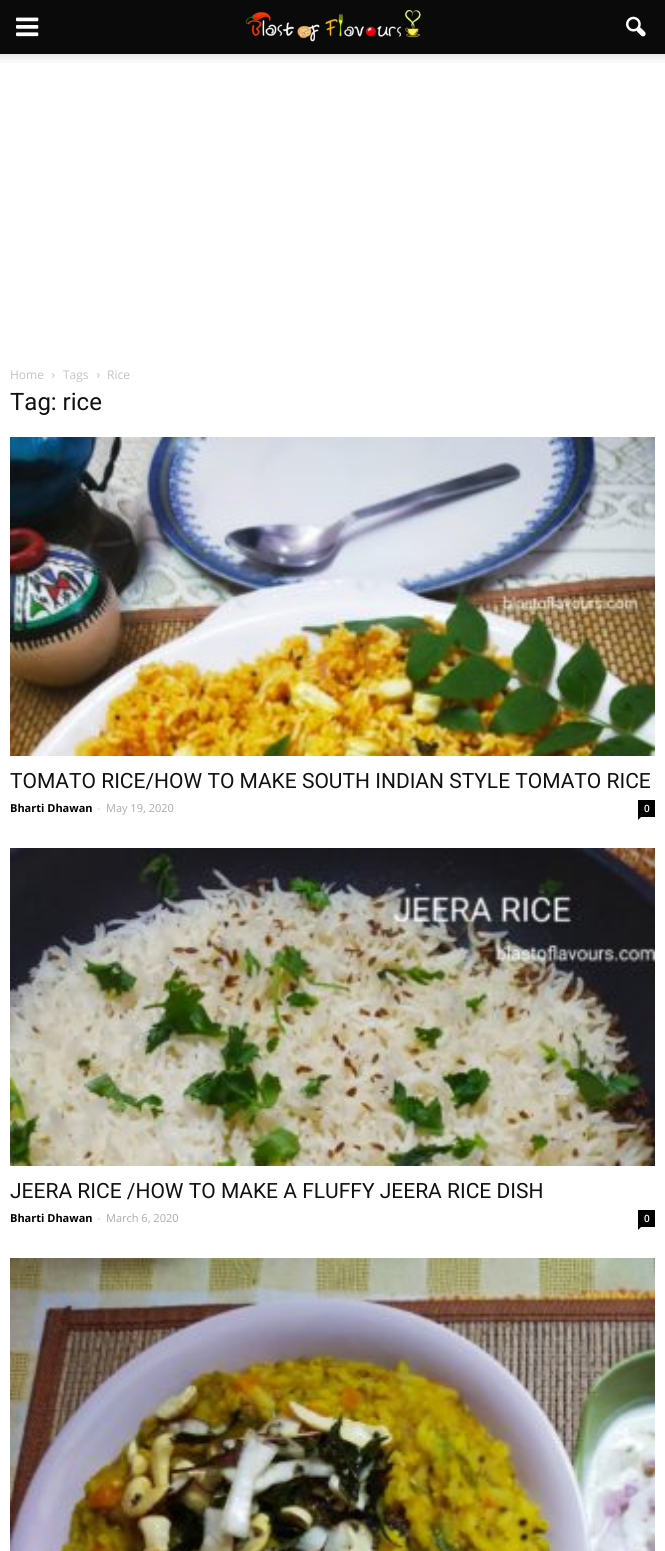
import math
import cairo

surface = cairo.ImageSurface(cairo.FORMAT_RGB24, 665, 1551)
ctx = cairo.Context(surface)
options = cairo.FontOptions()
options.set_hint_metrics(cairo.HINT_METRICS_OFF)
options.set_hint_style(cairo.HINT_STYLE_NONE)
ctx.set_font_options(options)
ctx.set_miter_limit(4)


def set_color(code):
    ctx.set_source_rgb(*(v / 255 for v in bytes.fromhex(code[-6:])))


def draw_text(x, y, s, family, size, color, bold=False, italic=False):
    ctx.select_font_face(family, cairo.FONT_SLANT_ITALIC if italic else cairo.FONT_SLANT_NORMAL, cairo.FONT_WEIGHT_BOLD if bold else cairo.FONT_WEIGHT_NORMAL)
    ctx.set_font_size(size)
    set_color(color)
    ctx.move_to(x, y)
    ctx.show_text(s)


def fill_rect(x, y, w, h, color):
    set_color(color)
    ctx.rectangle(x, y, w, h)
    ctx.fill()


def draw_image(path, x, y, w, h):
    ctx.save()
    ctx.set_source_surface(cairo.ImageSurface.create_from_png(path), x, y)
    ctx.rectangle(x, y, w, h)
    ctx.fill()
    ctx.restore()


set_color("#ffffff")
ctx.paint()
fill_rect(0, 0, 665, 54, "#0a0a0a")
draw_image("assets/img1.png", 16, 17, 23, 20)
draw_image("assets/img2.png", 245, 10, 176, 32)
draw_image("assets/img3.png", 626, 16, 20, 21)
draw_image("assets/img4.png", 0, 54, 665, 9)
draw_text(10, 379, "Home", "Open Sans", 12, "#c3c3c3")
draw_image("assets/img5.png", 52, 373, 3, 5)
draw_text(63, 379, "Tags", "Open Sans", 12, "#c3c3c3")
draw_image("assets/img5.png", 97, 373, 3, 5)
draw_text(107, 379, "Rice", "Open Sans", 12, "#c3c3c3")
draw_text(10, 410, "Tag: rice", "Roboto", 24, "#111111")
draw_image("assets/img6.png", 10, 437, 645, 319)
draw_text(10, 788, "TOMATO RICE/HOW TO MAKE SOUTH INDIAN STYLE TOMATO RICE", "Roboto", 21, "#111111")
draw_text(10, 812, "Bharti Dhawan", "Open Sans", 11, "#000000", bold=True)
draw_text(97, 812, "-", "Open Sans", 11, "#cccccc")
draw_text(106, 812, "May 19, 2020", "Open Sans", 11, "#aaaaaa")
fill_rect(638, 800, 17, 17, "#000000")
draw_text(644, 812, "0", "Open Sans SemiBold", 10, "#ffffff")
set_color("#000000")
ctx.new_path()
ctx.move_to(638, 817)
ctx.line_to(641, 817)
ctx.line_to(638, 820)
ctx.close_path()
ctx.fill()
draw_image("assets/img7.png", 10, 848, 645, 318)
draw_text(10, 1198, "JEERA RICE /HOW TO MAKE A FLUFFY JEERA RICE DISH", "Roboto", 21, "#111111")
draw_text(10, 1222, "Bharti Dhawan", "Open Sans", 11, "#000000", bold=True)
draw_text(97, 1222, "-", "Open Sans", 11, "#cccccc")
draw_text(106, 1222, "March 6, 2020", "Open Sans", 11, "#aaaaaa")
fill_rect(638, 1210, 17, 17, "#000000")
draw_text(644, 1222, "0", "Open Sans SemiBold", 10, "#ffffff")
set_color("#000000")
ctx.new_path()
ctx.move_to(638, 1227)
ctx.line_to(641, 1227)
ctx.line_to(638, 1230)
ctx.close_path()
ctx.fill()
draw_image("assets/img8.png", 10, 1258, 645, 293)
surface.write_to_png("output.png")
